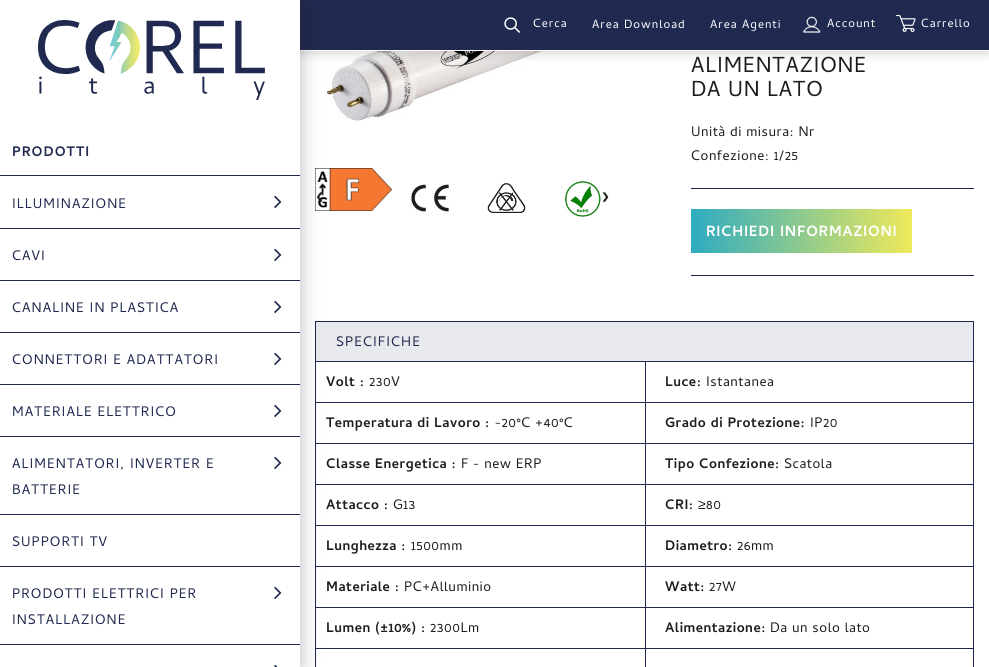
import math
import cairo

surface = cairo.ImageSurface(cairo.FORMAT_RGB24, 989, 667)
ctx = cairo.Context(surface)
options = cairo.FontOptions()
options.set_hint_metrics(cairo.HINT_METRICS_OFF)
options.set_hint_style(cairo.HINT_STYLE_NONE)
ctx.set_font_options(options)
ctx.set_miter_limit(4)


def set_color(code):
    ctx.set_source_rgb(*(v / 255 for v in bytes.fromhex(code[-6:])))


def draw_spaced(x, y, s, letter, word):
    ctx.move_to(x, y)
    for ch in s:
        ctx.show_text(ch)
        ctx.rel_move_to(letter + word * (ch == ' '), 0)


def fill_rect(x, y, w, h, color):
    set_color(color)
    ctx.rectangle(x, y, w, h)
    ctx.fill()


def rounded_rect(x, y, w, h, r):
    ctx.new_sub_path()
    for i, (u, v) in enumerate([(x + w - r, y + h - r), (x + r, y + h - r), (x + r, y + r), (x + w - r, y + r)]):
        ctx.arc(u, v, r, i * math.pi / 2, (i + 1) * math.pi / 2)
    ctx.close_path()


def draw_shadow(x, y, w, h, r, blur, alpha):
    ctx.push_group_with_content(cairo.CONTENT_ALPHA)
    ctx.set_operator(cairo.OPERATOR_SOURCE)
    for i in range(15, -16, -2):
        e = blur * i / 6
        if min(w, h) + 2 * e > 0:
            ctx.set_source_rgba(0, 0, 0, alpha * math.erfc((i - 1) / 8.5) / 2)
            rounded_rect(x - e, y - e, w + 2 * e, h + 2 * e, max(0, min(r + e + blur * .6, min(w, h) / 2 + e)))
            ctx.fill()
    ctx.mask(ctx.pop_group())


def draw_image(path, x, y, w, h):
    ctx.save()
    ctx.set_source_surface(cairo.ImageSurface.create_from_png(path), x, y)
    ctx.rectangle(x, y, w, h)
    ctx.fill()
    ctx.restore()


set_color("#ffffff")
ctx.paint()
draw_image("assets/img7.png", 323, 51, 298, 71)
set_color("#000000")
draw_shadow(0, 3, 989, 51, 0, 5, 0.15)
fill_rect(300, 50, 689, 1, "#ffffff")
fill_rect(300, 0, 689, 50, "#20294f")
draw_image("assets/img1.png", 504, 17, 16, 16)
ctx.select_font_face("Cambay")
ctx.set_font_size(12)
set_color("#ffffff")
draw_spaced(533, 27, "Cerca", 1, 0)
draw_spaced(592, 28, "Area Download", 1, 0)
draw_spaced(710, 28, "Area Agenti", 1, 0)
draw_image("assets/img2.png", 803, 16, 18, 17)
draw_spaced(827, 27, "Account", 1, 0)
draw_image("assets/img3.png", 896, 15, 20, 17)
draw_spaced(921, 27, "Carrello", 1, 0)
draw_image("assets/img8.png", 315, 168, 77, 43)
fill_rect(315, 321, 659, 1, "#20294f")
fill_rect(315, 321, 1, 346, "#20294f")
fill_rect(316, 322, 657, 39, "#e8e9ed")
fill_rect(316, 361, 657, 1, "#20294f")
fill_rect(316, 402, 657, 1, "#20294f")
fill_rect(316, 443, 657, 1, "#20294f")
fill_rect(316, 484, 657, 1, "#20294f")
fill_rect(316, 525, 657, 1, "#20294f")
fill_rect(316, 566, 657, 1, "#20294f")
fill_rect(316, 607, 657, 1, "#20294f")
fill_rect(316, 648, 657, 1, "#20294f")
set_color("#1d1d1b")
draw_shadow(0, 0, 300, 667, 0, 10, 0.3)
fill_rect(0, 0, 300, 667, "#ffffff")
draw_image("assets/img4.png", 38, 20, 227, 80)
fill_rect(0, 175, 300, 1, "#20294f")
ctx.select_font_face("Cambay", cairo.FONT_SLANT_NORMAL, cairo.FONT_WEIGHT_BOLD)
ctx.set_font_size(14)
draw_spaced(12, 156, "PRODOTTI", 1, 0)
fill_rect(0, 228, 300, 1, "#20294f")
ctx.select_font_face("Cambay")
draw_spaced(12, 208, "ILLUMINAZIONE", 1, 0)
draw_image("assets/img5.png", 274, 195, 8, 13)
fill_rect(0, 280, 300, 1, "#20294f")
draw_spaced(12, 260, "CAVI", 1, 0)
draw_image("assets/img5.png", 274, 248, 8, 13)
fill_rect(0, 332, 300, 1, "#20294f")
draw_spaced(12, 312, "CANALINE IN PLASTICA", 1, 0)
draw_image("assets/img5.png", 274, 300, 8, 13)
fill_rect(0, 384, 300, 1, "#20294f")
draw_spaced(12, 364, "CONNETTORI E ADATTATORI", 1, 0)
draw_image("assets/img5.png", 274, 352, 8, 13)
fill_rect(0, 436, 300, 1, "#20294f")
draw_spaced(12, 416, "MATERIALE ELETTRICO", 1, 0)
draw_image("assets/img5.png", 274, 404, 8, 13)
fill_rect(0, 514, 300, 1, "#20294f")
draw_spaced(12, 468, "ALIMENTATORI, INVERTER E", 1, 0)
draw_spaced(12, 494, "BATTERIE", 1, 0)
draw_image("assets/img5.png", 274, 456, 8, 13)
fill_rect(0, 566, 300, 1, "#20294f")
draw_spaced(12, 546, "SUPPORTI TV", 1, 0)
fill_rect(0, 644, 300, 1, "#20294f")
draw_spaced(12, 598, "PRODOTTI ELETTRICI PER", 1, 0)
draw_spaced(12, 624, "INSTALLAZIONE", 1, 0)
draw_image("assets/img5.png", 274, 586, 8, 13)
draw_image("assets/img6.png", 274, 664, 4, 3)
draw_image("assets/img9.png", 391, 184, 58, 28)
draw_image("assets/img10.png", 487, 183, 39, 30)
draw_image("assets/img11.png", 564, 181, 37, 36)
ctx.select_font_face("Cambay", cairo.FONT_SLANT_NORMAL, cairo.FONT_WEIGHT_BOLD)
ctx.set_font_size(23)
set_color("#1d1d1b")
draw_spaced(316, 204, "‹", 1, 0)
draw_spaced(602, 204, "›", 1, 0)
ctx.select_font_face("Cambay")
ctx.set_font_size(22)
draw_spaced(691, 72, "ALIMENTAZIONE", 0.75, 0)
draw_spaced(691, 96, "DA UN LATO", 0.75, 0)
fill_rect(691, 188, 283, 1, "#20294f")
ctx.set_font_size(14)
set_color("#1d1d1b")
draw_spaced(691, 136, "Unità di misura: Nr", 0.5, 0)
draw_spaced(691, 160, "Confezione: 1/25", 0.5, 0)
fill_rect(691, 275, 283, 1, "#20294f")
gradient = cairo.LinearGradient(691, 231, 912, 231)
gradient.add_color_stop_rgba(0, 0.18, 0.671, 0.757, 1)
gradient.add_color_stop_rgba(1, 0.937, 0.914, 0.357, 1)
ctx.set_source(gradient)
ctx.rectangle(691, 209, 221, 44)
ctx.fill()
ctx.select_font_face("Cambay", cairo.FONT_SLANT_NORMAL, cairo.FONT_WEIGHT_BOLD)
ctx.set_font_size(15)
set_color("#ffffff")
draw_spaced(706, 236, "RICHIEDI INFORMAZIONI", 0.75, 0)
fill_rect(973, 321, 1, 346, "#20294f")
ctx.select_font_face("Cambay")
ctx.set_font_size(14)
draw_spaced(336, 346, "SPECIFICHE", 1, 0)
ctx.select_font_face("Cambay", cairo.FONT_SLANT_NORMAL, cairo.FONT_WEIGHT_BOLD)
set_color("#1d1d1b")
draw_spaced(326, 386, "Volt :", 0.5, 0)
ctx.select_font_face("Cambay")
draw_spaced(369, 386, "230V", 0.5, 0)
fill_rect(645, 362, 1, 40, "#20294f")
ctx.select_font_face("Cambay", cairo.FONT_SLANT_NORMAL, cairo.FONT_WEIGHT_BOLD)
set_color("#1d1d1b")
draw_spaced(665, 386, "Luce:", 0.5, 0)
ctx.select_font_face("Cambay")
draw_spaced(706, 386, "Istantanea", 0.5, 0)
ctx.select_font_face("Cambay", cairo.FONT_SLANT_NORMAL, cairo.FONT_WEIGHT_BOLD)
draw_spaced(326, 427, "Temperatura di Lavoro :", 0.5, 0)
ctx.select_font_face("Cambay")
draw_spaced(495, 427, "-20°C +40°C", 0.5, 0)
fill_rect(645, 403, 1, 40, "#20294f")
ctx.select_font_face("Cambay", cairo.FONT_SLANT_NORMAL, cairo.FONT_WEIGHT_BOLD)
set_color("#1d1d1b")
draw_spaced(665, 427, "Grado di Protezione:", 0.5, 0)
ctx.select_font_face("Cambay")
draw_spaced(810, 427, "IP20", 0.5, 0)
ctx.select_font_face("Cambay", cairo.FONT_SLANT_NORMAL, cairo.FONT_WEIGHT_BOLD)
draw_spaced(326, 468, "Classe Energetica :", 0.5, 0)
ctx.select_font_face("Cambay")
draw_spaced(461, 468, "F - new ERP", 0.5, 0)
fill_rect(645, 444, 1, 40, "#20294f")
ctx.select_font_face("Cambay", cairo.FONT_SLANT_NORMAL, cairo.FONT_WEIGHT_BOLD)
set_color("#1d1d1b")
draw_spaced(665, 468, "Tipo Confezione:", 0.5, 0)
ctx.select_font_face("Cambay")
draw_spaced(784, 468, "Scatola", 0.5, 0)
ctx.select_font_face("Cambay", cairo.FONT_SLANT_NORMAL, cairo.FONT_WEIGHT_BOLD)
draw_spaced(326, 509, "Attacco :", 0.5, 0)
ctx.select_font_face("Cambay")
draw_spaced(393, 509, "G13", 0.5, 0)
fill_rect(645, 485, 1, 40, "#20294f")
ctx.select_font_face("Cambay", cairo.FONT_SLANT_NORMAL, cairo.FONT_WEIGHT_BOLD)
set_color("#1d1d1b")
draw_spaced(665, 509, "CRI:", 0.5, 0)
ctx.select_font_face("Liberation Sans")
draw_spaced(698, 509, "≥", 0.5, 0)
ctx.select_font_face("Cambay")
draw_spaced(706, 509, "80", 0.5, 0)
ctx.select_font_face("Cambay", cairo.FONT_SLANT_NORMAL, cairo.FONT_WEIGHT_BOLD)
draw_spaced(326, 550, "Lunghezza :", 0.5, 0)
ctx.select_font_face("Cambay")
draw_spaced(411, 550, "1500mm", 0.5, 0)
fill_rect(645, 526, 1, 40, "#20294f")
ctx.select_font_face("Cambay", cairo.FONT_SLANT_NORMAL, cairo.FONT_WEIGHT_BOLD)
set_color("#1d1d1b")
draw_spaced(665, 550, "Diametro:", 0.5, 0)
ctx.select_font_face("Cambay")
draw_spaced(737, 550, "26mm", 0.5, 0)
ctx.select_font_face("Cambay", cairo.FONT_SLANT_NORMAL, cairo.FONT_WEIGHT_BOLD)
draw_spaced(326, 591, "Materiale :", 0.5, 0)
ctx.select_font_face("Cambay")
draw_spaced(404, 591, "PC+Alluminio", 0.5, 0)
fill_rect(645, 567, 1, 40, "#20294f")
ctx.select_font_face("Cambay", cairo.FONT_SLANT_NORMAL, cairo.FONT_WEIGHT_BOLD)
set_color("#1d1d1b")
draw_spaced(665, 591, "Watt:", 0.5, 0)
ctx.select_font_face("Cambay")
draw_spaced(709, 591, "27W", 0.5, 0)
ctx.select_font_face("Cambay", cairo.FONT_SLANT_NORMAL, cairo.FONT_WEIGHT_BOLD)
draw_spaced(326, 632, "Lumen (±10%) :", 0.5, 0)
ctx.select_font_face("Cambay")
draw_spaced(430, 632, "2300Lm", 0.5, 0)
fill_rect(645, 608, 1, 40, "#20294f")
ctx.select_font_face("Cambay", cairo.FONT_SLANT_NORMAL, cairo.FONT_WEIGHT_BOLD)
set_color("#1d1d1b")
draw_spaced(665, 632, "Alimentazione:", 0.5, 0)
ctx.select_font_face("Cambay")
draw_spaced(770, 632, "Da un solo lato", 0.5, 0)
fill_rect(645, 649, 1, 18, "#20294f")
surface.write_to_png("output.png")
